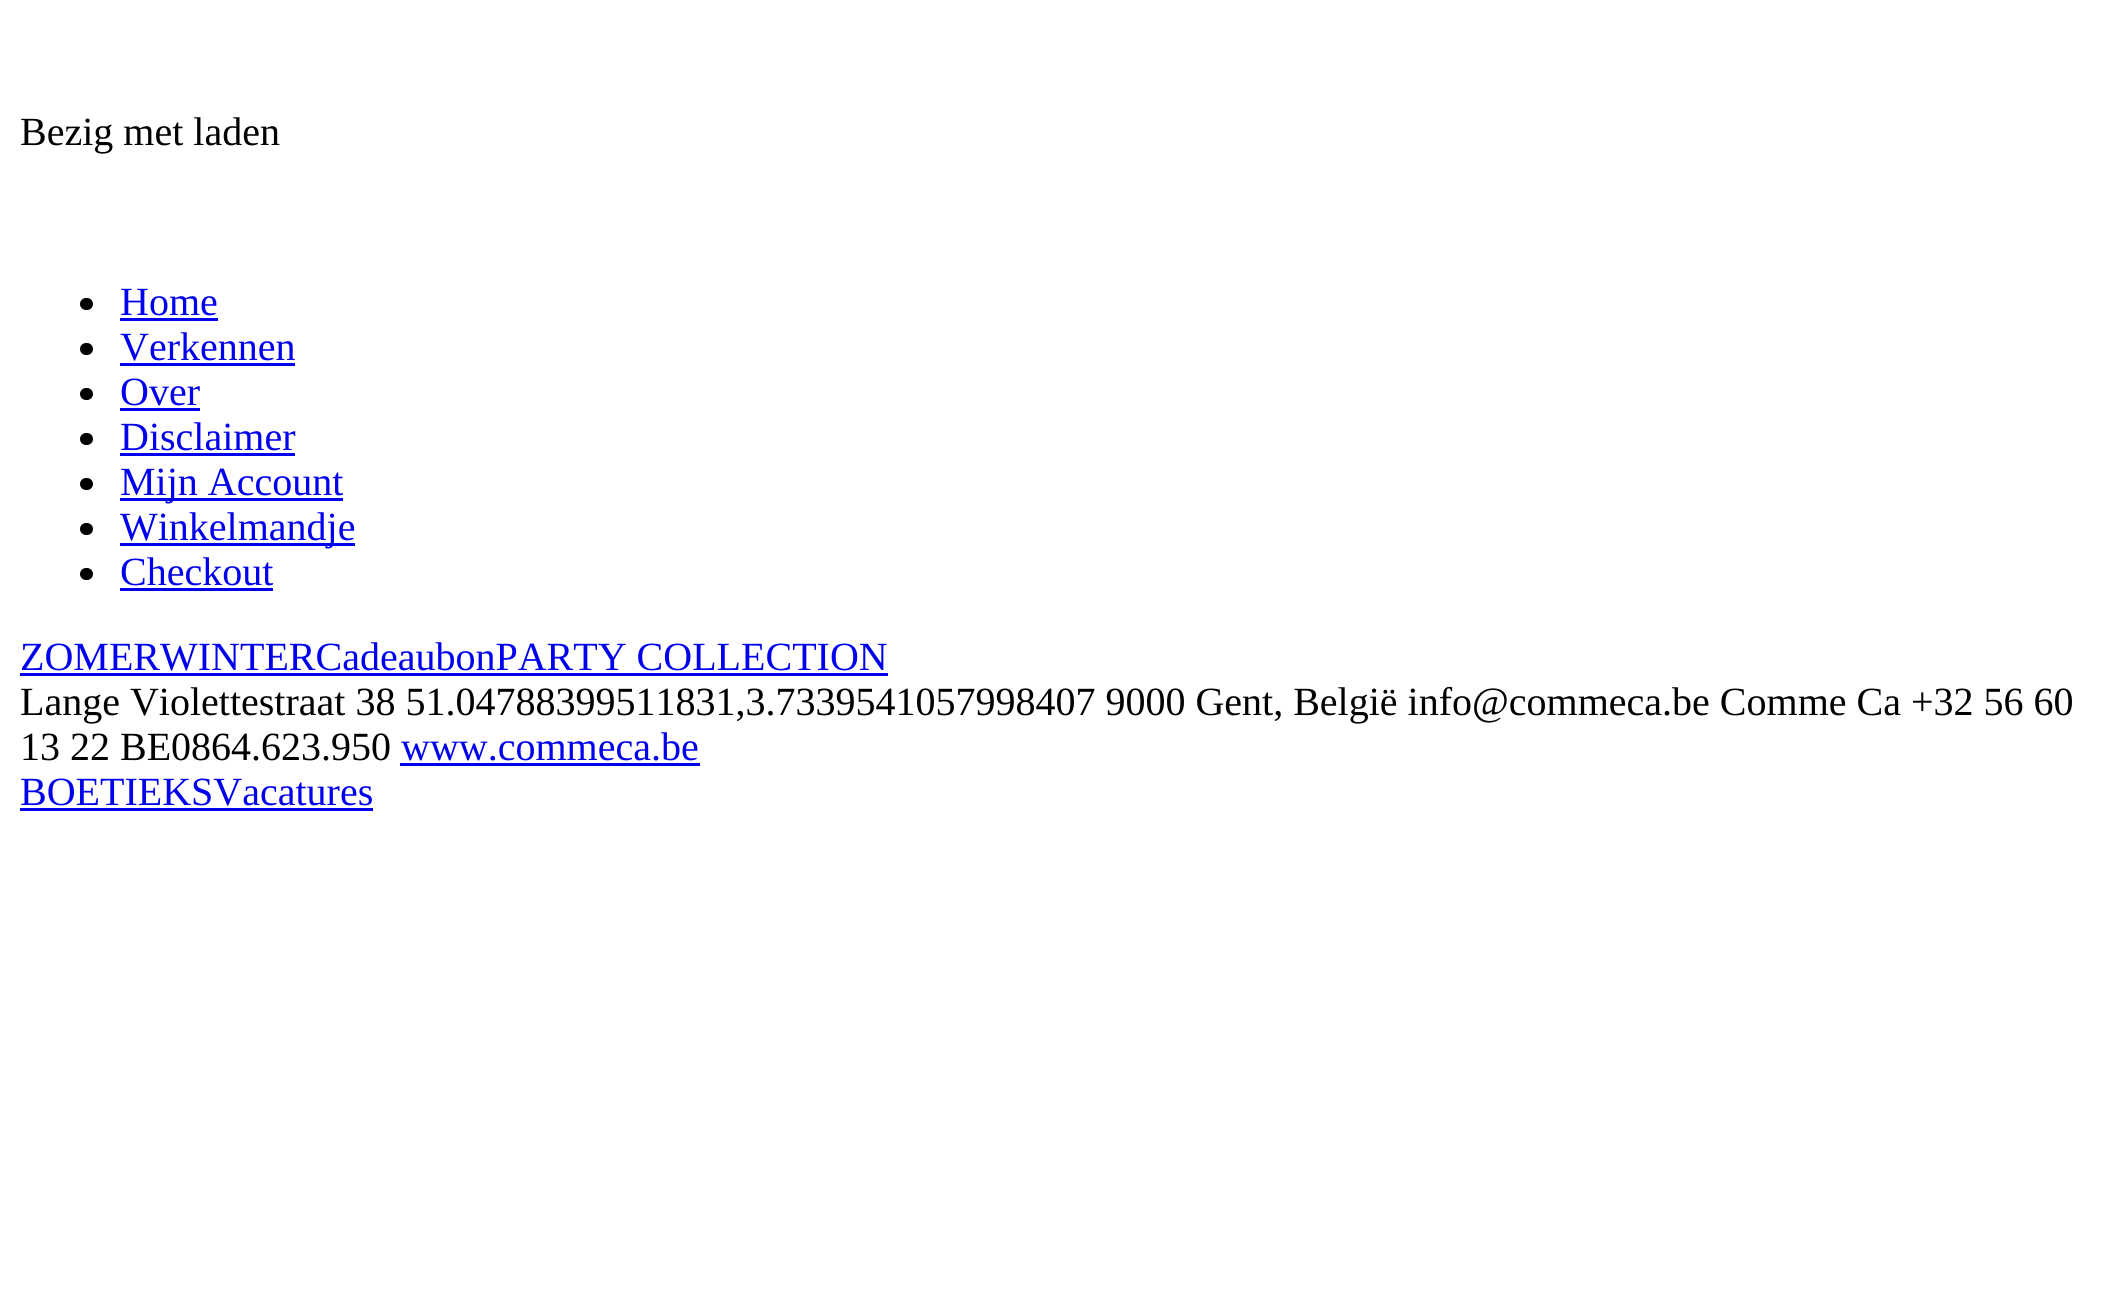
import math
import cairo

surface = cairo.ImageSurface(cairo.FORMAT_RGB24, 2106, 1312)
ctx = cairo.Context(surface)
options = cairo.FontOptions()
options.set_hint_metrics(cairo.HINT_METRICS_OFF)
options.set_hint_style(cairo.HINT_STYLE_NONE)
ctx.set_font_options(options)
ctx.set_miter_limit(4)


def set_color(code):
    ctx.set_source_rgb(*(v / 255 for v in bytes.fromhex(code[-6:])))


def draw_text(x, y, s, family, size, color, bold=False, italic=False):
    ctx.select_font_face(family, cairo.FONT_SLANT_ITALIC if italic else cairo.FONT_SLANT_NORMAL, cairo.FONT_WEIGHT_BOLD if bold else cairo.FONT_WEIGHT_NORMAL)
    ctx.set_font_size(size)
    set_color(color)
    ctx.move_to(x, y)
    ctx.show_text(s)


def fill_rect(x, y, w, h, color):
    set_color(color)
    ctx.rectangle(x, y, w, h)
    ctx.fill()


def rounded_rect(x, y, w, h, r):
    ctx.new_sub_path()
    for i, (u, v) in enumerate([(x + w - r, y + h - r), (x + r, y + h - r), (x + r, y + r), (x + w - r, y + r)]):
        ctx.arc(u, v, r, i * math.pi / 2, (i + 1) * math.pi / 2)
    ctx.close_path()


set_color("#ffffff")
ctx.paint()
draw_text(20, 145, "Bezig met laden", "Liberation Serif", 40, "#000000")
rounded_rect(80, 298, 13, 12, 6)
ctx.fill()
draw_text(120, 315, "Home", "Liberation Serif", 40, "#0000ee")
fill_rect(120, 318, 98, 3, "#0000ee")
set_color("#000000")
rounded_rect(80, 343, 13, 12, 6)
ctx.fill()
draw_text(120, 360, "Verkennen", "Liberation Serif", 40, "#0000ee")
fill_rect(120, 363, 175, 3, "#0000ee")
set_color("#000000")
rounded_rect(80, 388, 13, 12, 6)
ctx.fill()
draw_text(120, 405, "Over", "Liberation Serif", 40, "#0000ee")
fill_rect(120, 408, 80, 3, "#0000ee")
set_color("#000000")
rounded_rect(80, 433, 13, 12, 6)
ctx.fill()
draw_text(120, 450, "Disclaimer", "Liberation Serif", 40, "#0000ee")
fill_rect(120, 453, 175, 3, "#0000ee")
set_color("#000000")
rounded_rect(80, 478, 13, 12, 6)
ctx.fill()
fill_rect(120, 498, 223, 3, "#0000ee")
draw_text(120, 495, "Mijn Account", "Liberation Serif", 40, "#0000ee")
set_color("#000000")
rounded_rect(80, 523, 13, 12, 6)
ctx.fill()
fill_rect(120, 543, 235, 3, "#0000ee")
draw_text(120, 540, "Winkelmandje", "Liberation Serif", 40, "#0000ee")
set_color("#000000")
rounded_rect(80, 568, 13, 12, 6)
ctx.fill()
draw_text(120, 585, "Checkout", "Liberation Serif", 40, "#0000ee")
fill_rect(120, 588, 153, 3, "#0000ee")
draw_text(20, 670, "ZOMERWINTERCadeaubonPARTY COLLECTION", "Liberation Serif", 40, "#0000ee")
fill_rect(20, 673, 868, 3, "#0000ee")
draw_text(20, 715, "Lange Violettestraat 38 51.04788399511831,3.7339541057998407 9000 Gent, België info@commeca.be Comme Ca +32 56 60", "Liberation Serif", 40, "#000000")
draw_text(20, 760, "13 22 BE0864.623.950", "Liberation Serif", 40, "#000000")
draw_text(401, 760, "www.commeca.be", "Liberation Serif", 40, "#0000ee")
fill_rect(400, 763, 300, 3, "#0000ee")
draw_text(20, 805, "BOETIEKSVacatures", "Liberation Serif", 40, "#0000ee")
fill_rect(20, 808, 353, 3, "#0000ee")
surface.write_to_png("output.png")
